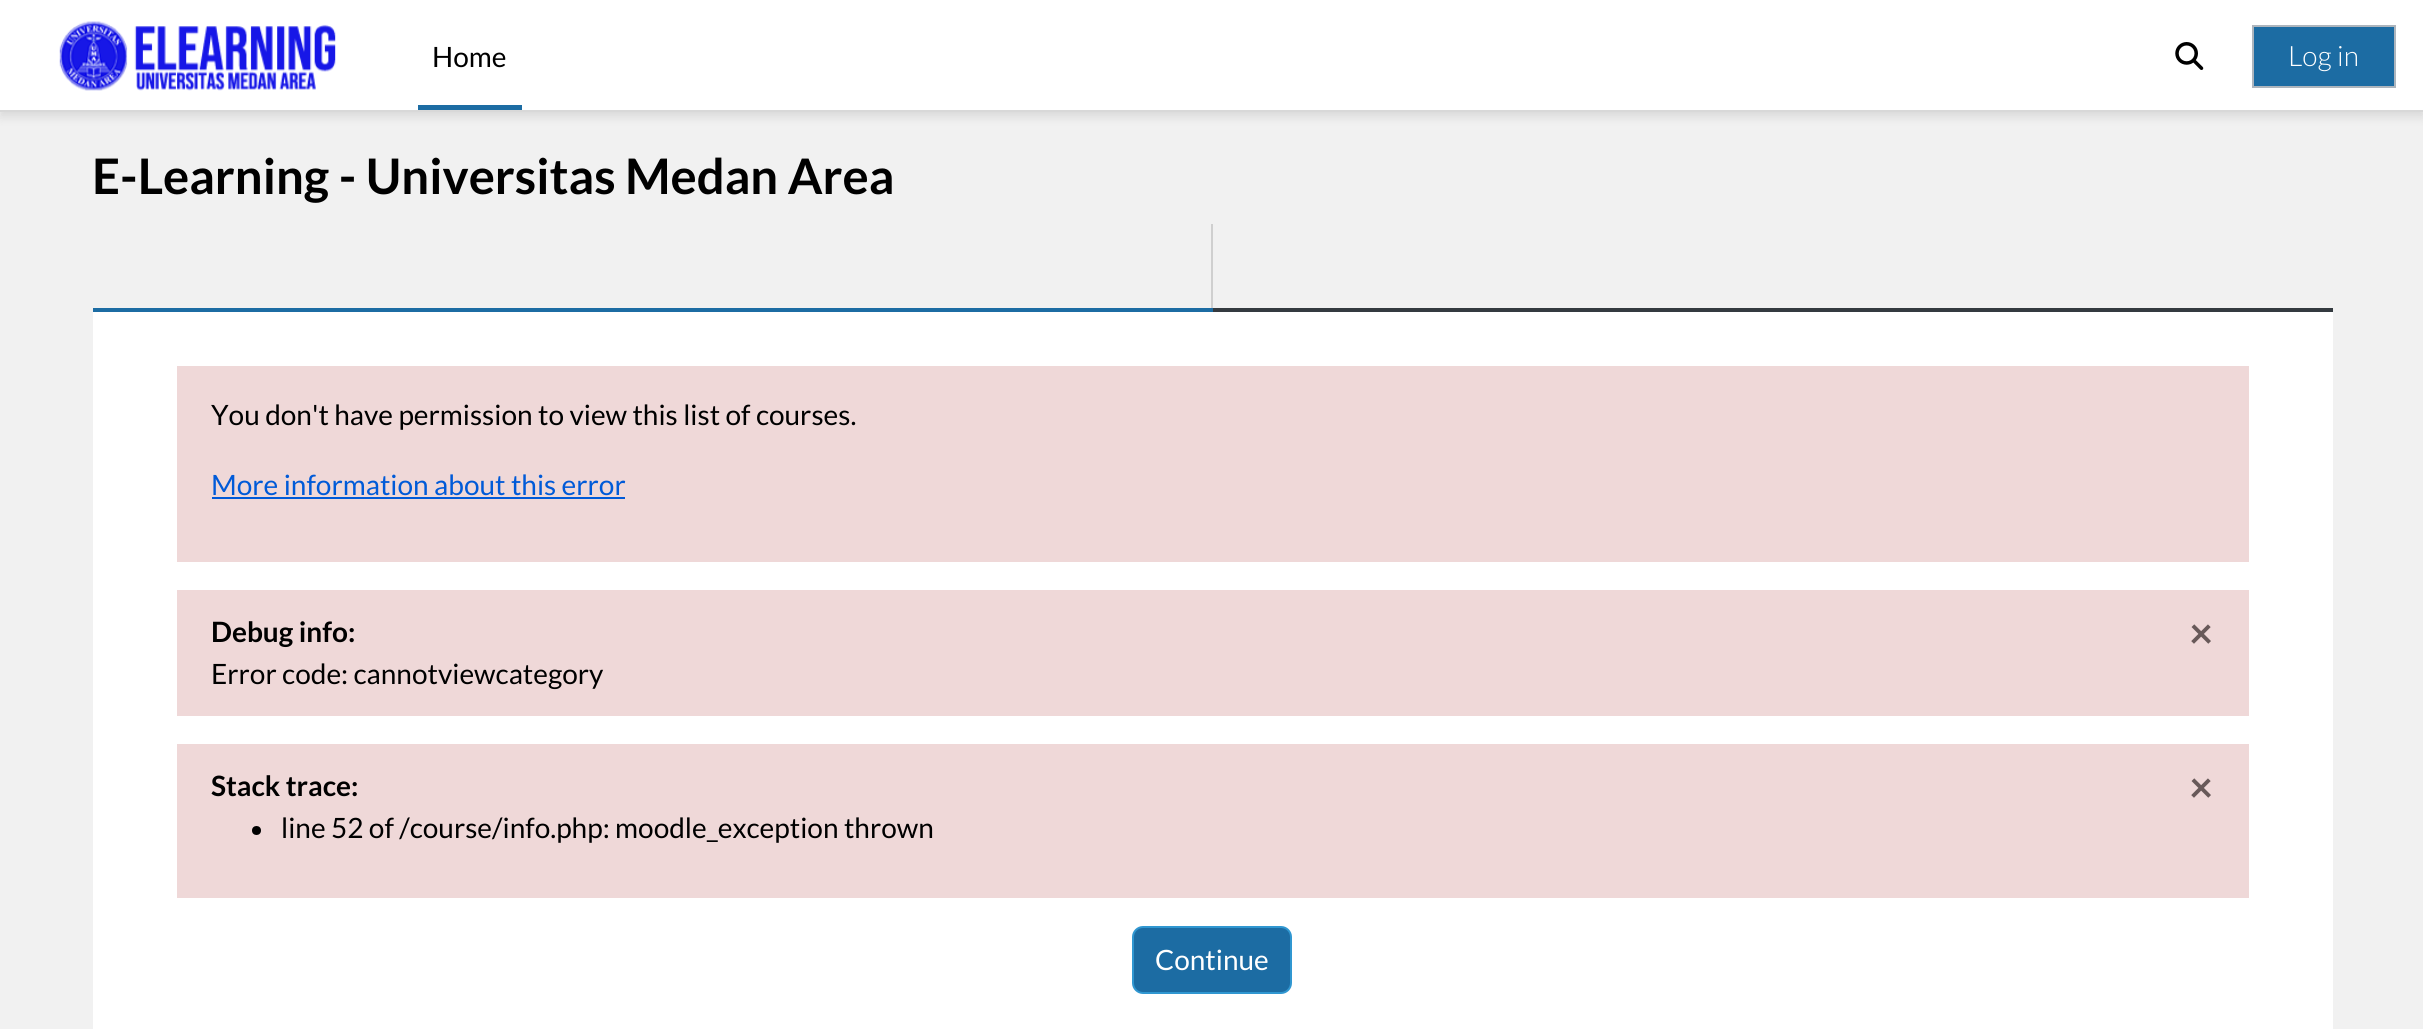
import math
import cairo

surface = cairo.ImageSurface(cairo.FORMAT_RGB24, 2423, 1029)
ctx = cairo.Context(surface)
options = cairo.FontOptions()
options.set_hint_metrics(cairo.HINT_METRICS_OFF)
options.set_hint_style(cairo.HINT_STYLE_NONE)
ctx.set_font_options(options)
ctx.set_miter_limit(4)


def set_color(code):
    ctx.set_source_rgb(*(v / 255 for v in bytes.fromhex(code[-6:])))


def draw_text(x, y, s, family, size, color, bold=False, italic=False):
    ctx.select_font_face(family, cairo.FONT_SLANT_ITALIC if italic else cairo.FONT_SLANT_NORMAL, cairo.FONT_WEIGHT_BOLD if bold else cairo.FONT_WEIGHT_NORMAL)
    ctx.set_font_size(size)
    set_color(color)
    ctx.move_to(x, y)
    ctx.show_text(s)


def fill_rect(x, y, w, h, color):
    set_color(color)
    ctx.rectangle(x, y, w, h)
    ctx.fill()


def rounded_rect(x, y, w, h, r):
    ctx.new_sub_path()
    for i, (u, v) in enumerate([(x + w - r, y + h - r), (x + r, y + h - r), (x + r, y + r), (x + w - r, y + r)]):
        ctx.arc(u, v, r, i * math.pi / 2, (i + 1) * math.pi / 2)
    ctx.close_path()


def draw_shadow(x, y, w, h, r, blur, alpha):
    ctx.push_group_with_content(cairo.CONTENT_ALPHA)
    ctx.set_operator(cairo.OPERATOR_SOURCE)
    for i in range(15, -16, -2):
        e = blur * i / 6
        if min(w, h) + 2 * e > 0:
            ctx.set_source_rgba(0, 0, 0, alpha * math.erfc((i - 1) / 8.5) / 2)
            rounded_rect(x - e, y - e, w + 2 * e, h + 2 * e, max(0, min(r + e + blur * .6, min(w, h) / 2 + e)))
            ctx.fill()
    ctx.mask(ctx.pop_group())


def draw_image(path, x, y, w, h):
    ctx.save()
    ctx.set_source_surface(cairo.ImageSurface.create_from_png(path), x, y)
    ctx.rectangle(x, y, w, h)
    ctx.fill()
    ctx.restore()


set_color("#f1f1f1")
ctx.paint()
set_color("#000000")
draw_shadow(0, 5, 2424, 112, 0, 5, 0.1)
fill_rect(0, 0, 2423, 110, "#ffffff")
fill_rect(0, 110, 2423, 2, "#d8d8d8")
draw_image("assets/img1.png", 59, 21, 277, 70)
fill_rect(418, 105, 104, 5, "#1c6ca3")
draw_text(432, 67, "Home", "Lato", 28, "#000000")
draw_image("assets/img2.png", 2175, 42, 29, 28)
set_color("#1c6ca3")
ctx.rectangle(2253, 26, 142, 61)
ctx.fill_preserve()
set_color("#adb5bd")
ctx.stroke()
draw_text(2288, 66, "Log in", "Lato Light", 28, "#ffffff")
draw_text(92, 194, "E-Learning - Universitas Medan Area", "Lato", 49, "#000000", bold=True)
fill_rect(1211, 224, 2, 84, "#cfcfcf")
fill_rect(93, 308, 1120, 4, "#1c6ca3")
fill_rect(1213, 308, 1120, 4, "#343a40")
fill_rect(93, 312, 2240, 717, "#ffffff")
fill_rect(177, 366, 2072, 196, "#efd8d8")
draw_text(211, 425, "You don't have permission to view this list of courses.", "Lato", 28, "#000000")
draw_text(211, 495, "More information about this error", "Lato", 28, "#005ad8")
fill_rect(212, 497, 413, 2, "#005ad8")
fill_rect(177, 590, 2072, 126, "#efd8d8")
draw_text(211, 642, "Debug info:", "Lato", 28, "#000000", bold=True)
draw_text(2189, 648, "×", "Lato", 42, "#685959", bold=True)
draw_text(211, 684, "Error code: cannotviewcategory", "Lato", 28, "#000000")
fill_rect(177, 744, 2072, 154, "#efd8d8")
draw_text(211, 796, "Stack trace:", "Lato", 28, "#000000", bold=True)
draw_text(2189, 802, "×", "Lato", 42, "#685959", bold=True)
set_color("#000000")
ctx.new_path()
ctx.arc(256.5, 830.5, 4.5, 0, 2 * math.pi)
ctx.fill()
draw_text(281, 838, "line 52 of /course/info.php: moodle_exception thrown", "Lato", 28, "#000000")
set_color("#1c6ca3")
rounded_rect(1133, 927, 158, 66, 10)
ctx.fill_preserve()
set_color("#3097d1")
ctx.stroke()
draw_text(1155, 970, "Continue", "Lato", 28, "#ffffff")
surface.write_to_png("output.png")
